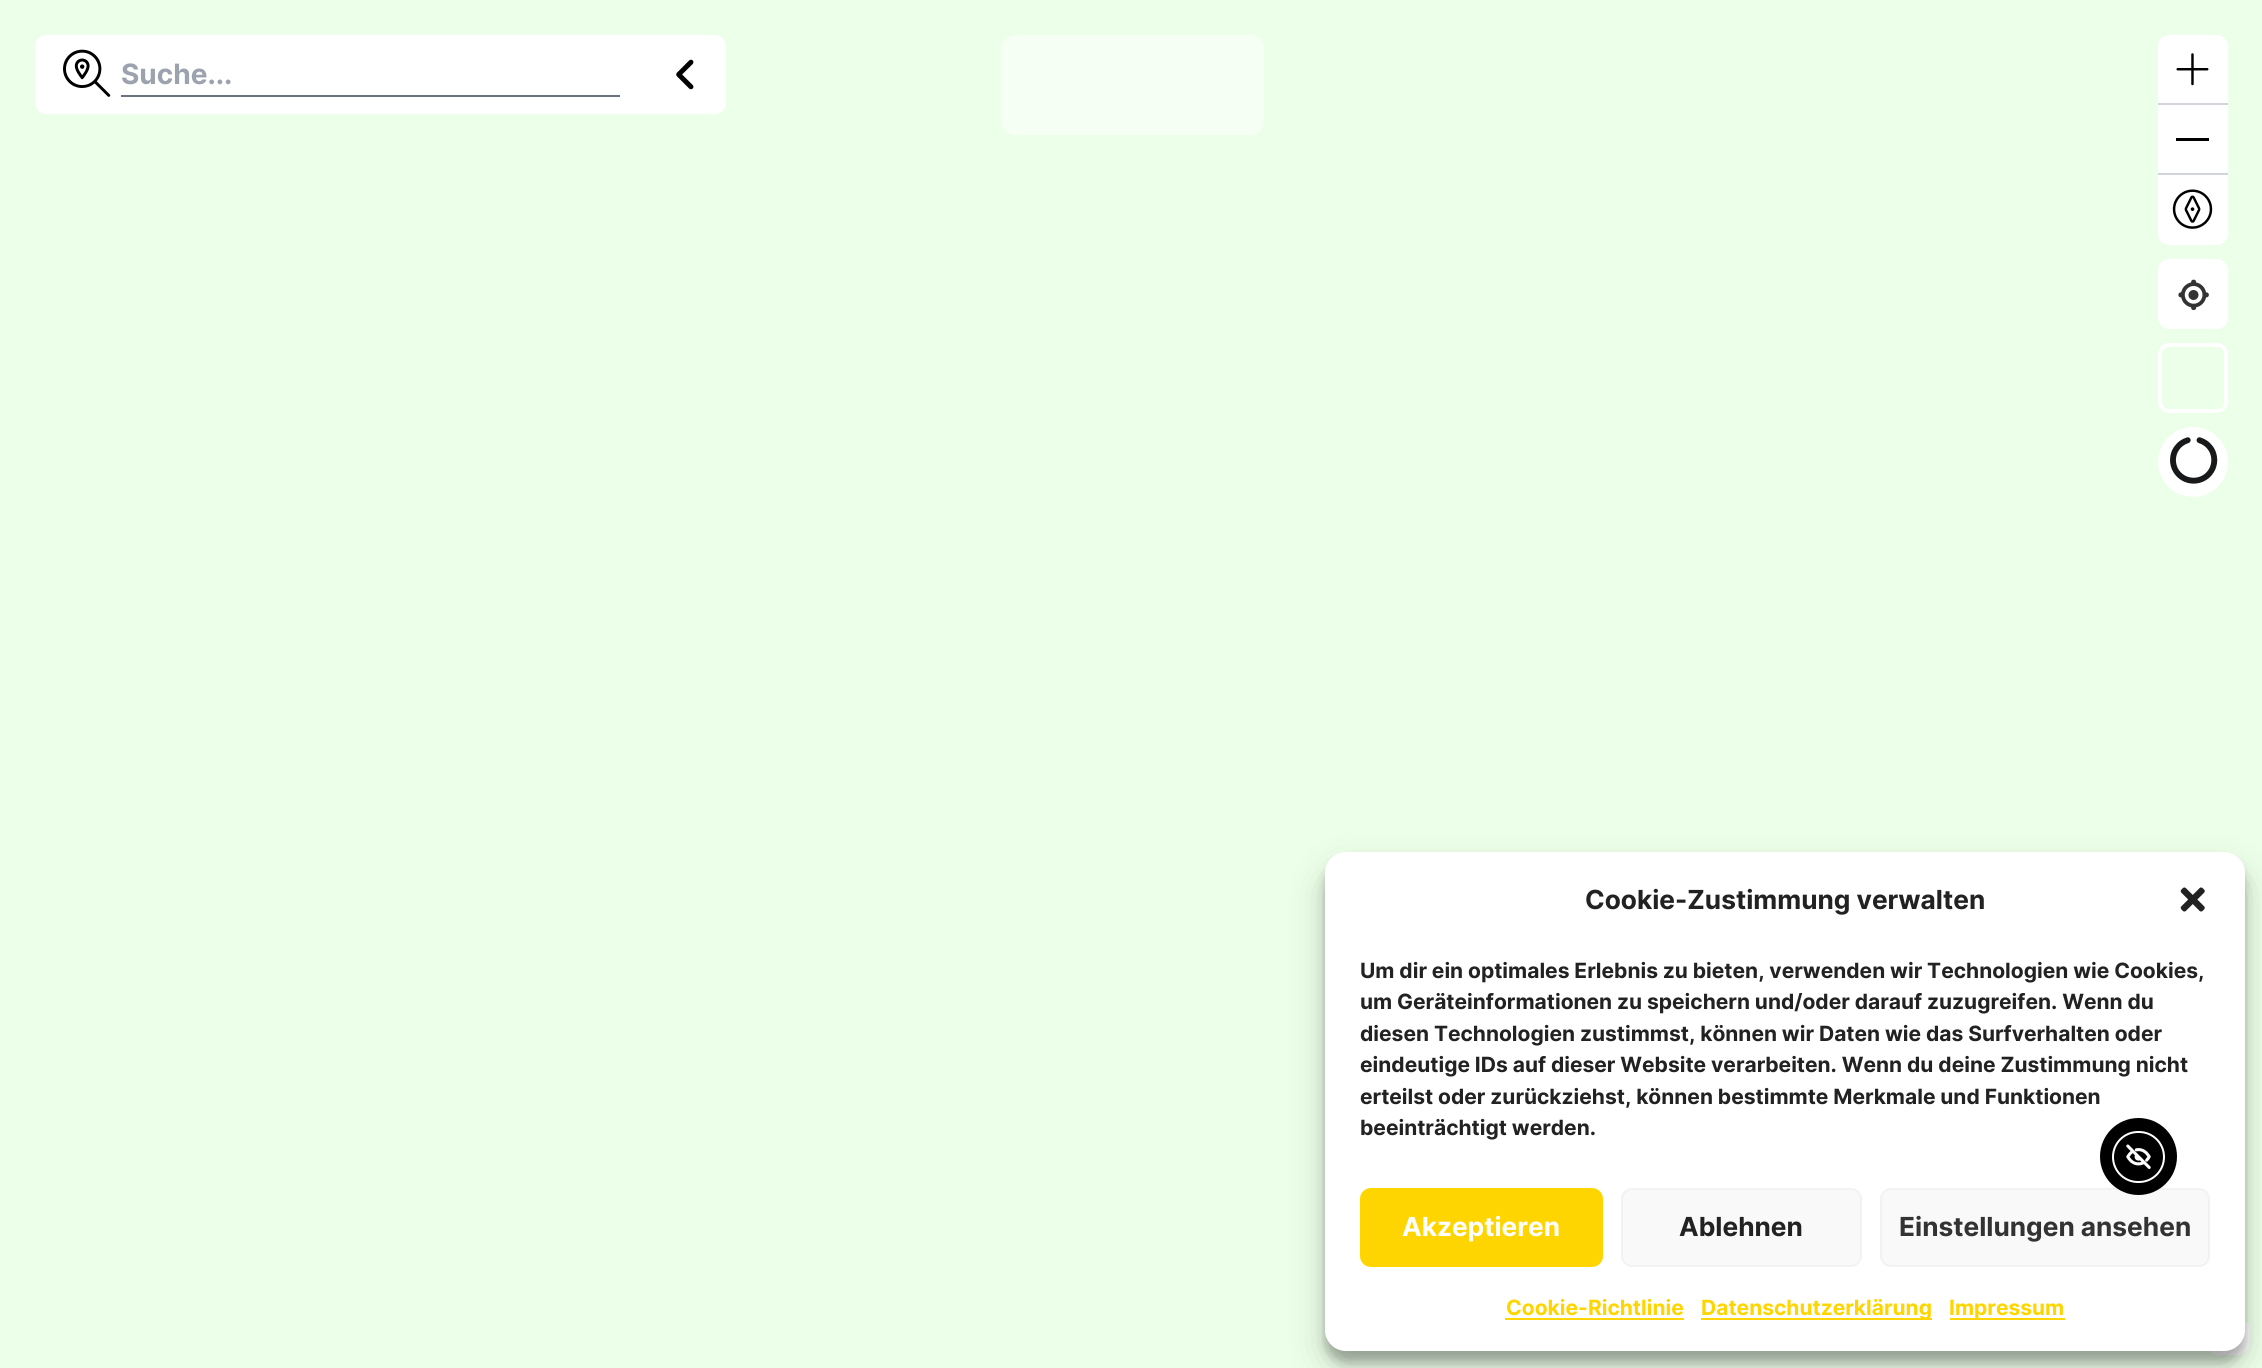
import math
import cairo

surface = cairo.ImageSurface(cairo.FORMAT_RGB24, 2262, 1368)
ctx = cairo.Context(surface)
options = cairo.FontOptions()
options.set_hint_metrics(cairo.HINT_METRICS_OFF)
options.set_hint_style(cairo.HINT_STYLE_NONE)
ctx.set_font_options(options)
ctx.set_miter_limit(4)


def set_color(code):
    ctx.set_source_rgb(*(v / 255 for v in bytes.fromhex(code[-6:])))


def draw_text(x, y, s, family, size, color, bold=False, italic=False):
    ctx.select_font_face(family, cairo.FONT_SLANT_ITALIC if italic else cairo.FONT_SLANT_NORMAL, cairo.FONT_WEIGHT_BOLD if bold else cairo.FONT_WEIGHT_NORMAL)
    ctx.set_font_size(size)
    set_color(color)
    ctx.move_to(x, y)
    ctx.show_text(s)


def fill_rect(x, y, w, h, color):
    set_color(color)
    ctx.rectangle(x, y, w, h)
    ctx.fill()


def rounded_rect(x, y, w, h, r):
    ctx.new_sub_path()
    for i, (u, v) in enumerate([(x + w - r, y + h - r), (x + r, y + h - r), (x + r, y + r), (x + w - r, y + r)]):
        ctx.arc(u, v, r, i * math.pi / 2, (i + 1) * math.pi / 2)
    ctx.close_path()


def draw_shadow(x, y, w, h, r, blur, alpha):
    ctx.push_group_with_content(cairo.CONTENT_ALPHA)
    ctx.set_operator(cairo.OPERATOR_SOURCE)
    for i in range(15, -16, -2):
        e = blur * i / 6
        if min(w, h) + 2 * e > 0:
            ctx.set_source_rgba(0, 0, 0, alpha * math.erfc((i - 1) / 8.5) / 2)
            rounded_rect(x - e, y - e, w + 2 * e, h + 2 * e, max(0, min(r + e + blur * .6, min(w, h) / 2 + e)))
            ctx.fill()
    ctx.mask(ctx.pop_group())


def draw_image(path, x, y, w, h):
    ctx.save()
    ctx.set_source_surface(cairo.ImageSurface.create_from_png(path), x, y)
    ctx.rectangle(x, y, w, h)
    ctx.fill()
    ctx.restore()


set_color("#ecffe8")
ctx.paint()
set_color("#ffffff")
ctx.new_path()
ctx.move_to(46, 35)
ctx.line_to(648, 35)
ctx.line_to(648, 114)
ctx.line_to(46, 114)
ctx.curve_to(40, 114, 35, 109, 35, 103)
ctx.line_to(35, 46)
ctx.curve_to(35, 40, 40, 35, 46, 35)
ctx.close_path()
ctx.fill()
draw_image("assets/img1.png", 63, 49, 48, 48)
fill_rect(121, 95, 499, 2, "#6b7280")
draw_text(121, 84, "Suche...", "Inter", 28, "#9ca3af", bold=True)
set_color("#ffffff")
ctx.new_path()
ctx.move_to(648, 35)
ctx.line_to(715, 35)
ctx.curve_to(721, 35, 726, 40, 726, 46)
ctx.line_to(726, 103)
ctx.curve_to(726, 109, 721, 114, 715, 114)
ctx.line_to(648, 114)
ctx.close_path()
ctx.fill()
draw_image("assets/img2.png", 676, 59, 18, 31)
set_color("#f6fff4")
rounded_rect(1001, 35, 263, 100, 14)
ctx.fill()
set_color("#ffffff")
ctx.new_path()
ctx.move_to(2169, 35)
ctx.line_to(2217, 35)
ctx.curve_to(2223, 35, 2228, 40, 2228, 46)
ctx.line_to(2228, 103)
ctx.line_to(2158, 103)
ctx.line_to(2158, 46)
ctx.curve_to(2158, 40, 2163, 35, 2169, 35)
ctx.close_path()
ctx.fill()
fill_rect(2158, 103, 70, 2, "#d1d5db")
draw_image("assets/img3.png", 2176, 53, 33, 33)
fill_rect(2158, 105, 70, 68, "#ffffff")
fill_rect(2158, 173, 70, 2, "#d1d5db")
fill_rect(2176, 138, 33, 3, "#000000")
set_color("#ffffff")
ctx.new_path()
ctx.move_to(2158, 175)
ctx.line_to(2228, 175)
ctx.line_to(2228, 234)
ctx.curve_to(2228, 240, 2223, 245, 2217, 245)
ctx.line_to(2169, 245)
ctx.curve_to(2163, 245, 2158, 240, 2158, 234)
ctx.close_path()
ctx.fill()
draw_image("assets/img4.png", 2172, 189, 41, 40)
rounded_rect(2158, 259, 70, 70, 11)
ctx.fill()
draw_image("assets/img5.png", 2178, 279, 31, 32)
rounded_rect(2160, 345, 66, 66, 9)
ctx.set_line_width(4)
ctx.stroke()
ctx.arc(2193, 462, 35, 0, 2 * math.pi)
ctx.fill()
draw_image("assets/img6.png", 2170, 437, 48, 47)
rounded_rect(2207, 1318, 42, 37, 11)
ctx.fill()
draw_image("assets/img7.png", 2233, 1343, 7, 6)
set_color("#000000")
draw_shadow(1325, 863, 920, 499, 21, 5, 0.23)
draw_shadow(1325, 870, 920, 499, 21, 17.5, 0.19)
set_color("#ffffff")
rounded_rect(1325, 852, 920, 499, 21)
ctx.fill()
draw_text(1585, 909, "Cookie-Zustimmung verwalten", "Inter", 26.25, "#222222", bold=True)
draw_image("assets/img8.png", 2180, 887, 25, 25)
draw_text(1360, 978, "Um dir ein optimales Erlebnis zu bieten, verwenden wir Technologien wie Cookies,", "Inter", 21, "#222222", bold=True)
draw_text(1360, 1009, "um Geräteinformationen zu speichern und/oder darauf zuzugreifen. Wenn du", "Inter", 21, "#222222", bold=True)
draw_text(1360, 1041, "diesen Technologien zustimmst, können wir Daten wie das Surfverhalten oder", "Inter", 21, "#222222", bold=True)
draw_text(1360, 1072, "eindeutige IDs auf dieser Website verarbeiten. Wenn du deine Zustimmung nicht", "Inter", 21, "#222222", bold=True)
draw_text(1360, 1104, "erteilst oder zurückziehst, können bestimmte Merkmale und Funktionen", "Inter", 21, "#222222", bold=True)
draw_text(1360, 1135, "beeinträchtigt werden.", "Inter", 21, "#222222", bold=True)
set_color("#ffd500")
rounded_rect(1361, 1189, 241, 77, 10)
ctx.fill_preserve()
ctx.set_line_width(2)
ctx.stroke()
draw_text(1402, 1236, "Akzeptieren", "Inter", 26.25, "#ffffff", bold=True)
set_color("#f9f9f9")
rounded_rect(1622, 1189, 239, 77, 10)
ctx.fill_preserve()
set_color("#f2f2f2")
ctx.stroke()
draw_text(1679, 1236, "Ablehnen", "Inter", 26.25, "#222222", bold=True)
set_color("#f9f9f9")
rounded_rect(1881, 1189, 328, 77, 10)
ctx.fill_preserve()
set_color("#f2f2f2")
ctx.stroke()
draw_text(1899, 1236, "Einstellungen ansehen", "Inter", 26.25, "#333333", bold=True)
draw_text(1506, 1315, "Cookie-Richtlinie", "Inter", 21, "#ffd500", bold=True)
fill_rect(1505, 1318, 179, 2, "#ffd500")
fill_rect(1701, 1318, 231, 2, "#ffd500")
draw_text(1701, 1315, "Datenschutzerklärung", "Inter", 21, "#ffd500", bold=True)
fill_rect(1950, 1318, 115, 2, "#ffd500")
draw_text(1949, 1315, "Impressum", "Inter", 21, "#ffd500", bold=True)
set_color("#000000")
ctx.new_path()
ctx.arc(2138.5, 1156.5, 38.5, 0, 2 * math.pi)
ctx.fill()
rounded_rect(2113, 1132, 51, 50, 25)
set_color("#ffffff")
ctx.stroke()
draw_image("assets/img9.png", 2126, 1144, 25, 25)
surface.write_to_png("output.png")
